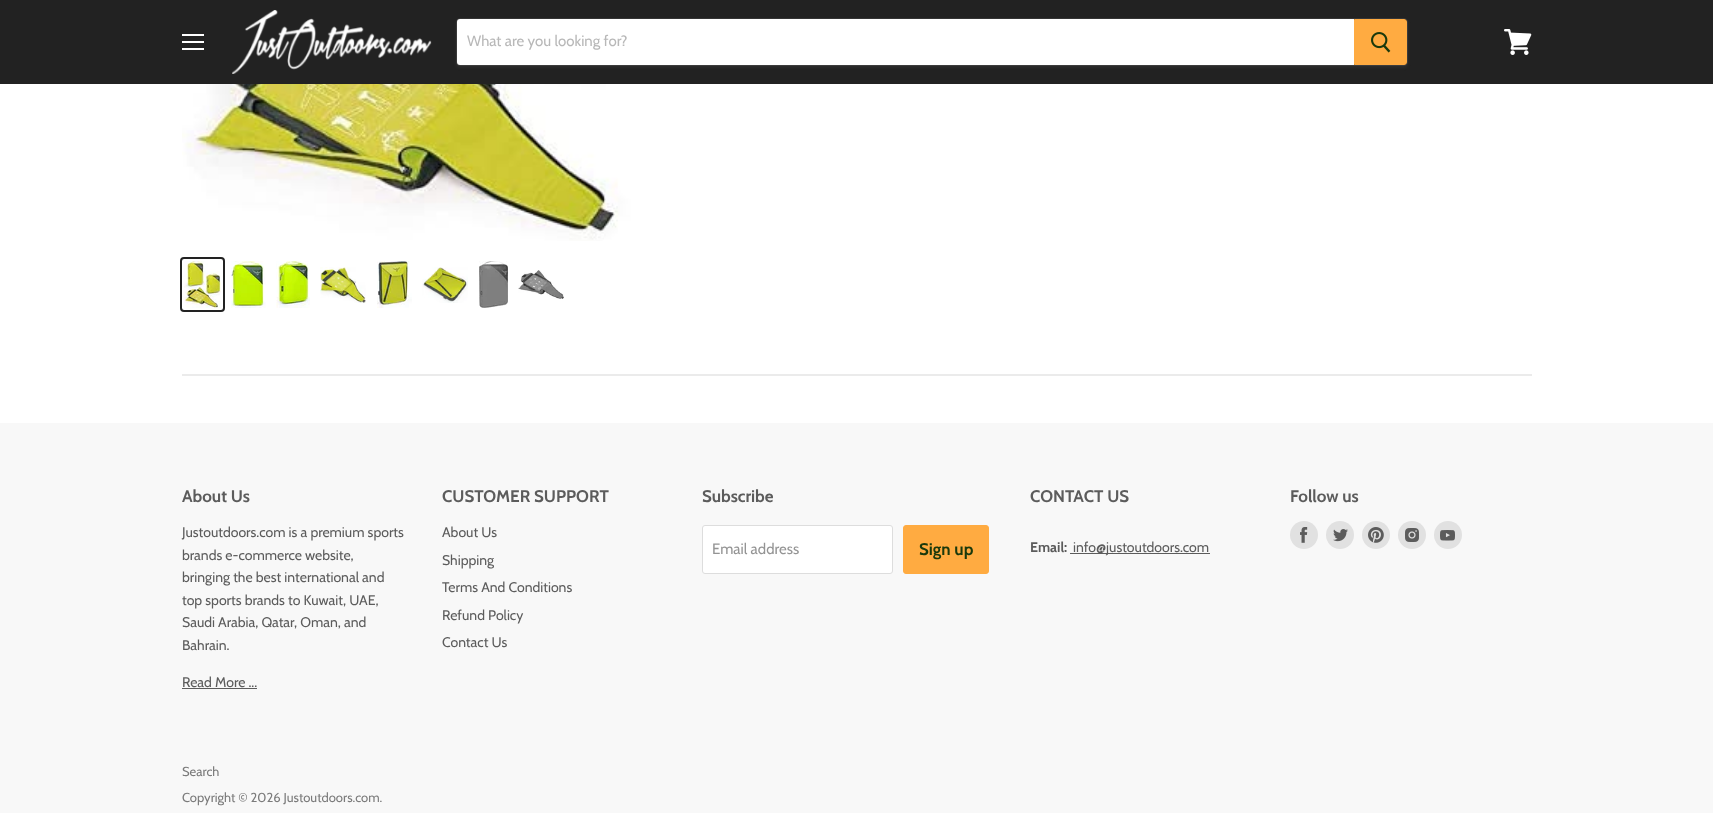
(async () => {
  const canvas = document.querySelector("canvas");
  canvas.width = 1713;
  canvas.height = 813;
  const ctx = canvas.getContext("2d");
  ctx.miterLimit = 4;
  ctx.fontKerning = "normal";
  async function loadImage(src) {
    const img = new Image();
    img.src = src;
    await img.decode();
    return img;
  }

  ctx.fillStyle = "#ffffff";
  ctx.fillRect(0, 0, 1713, 813);
  for (const [x, y, w, h, color] of [
    [0, 0, 1713, 84, "#222222"],
    [182, 34, 22, 2, "#ffffff"],
    [182, 41, 22, 2, "#ffffff"],
    [182, 48, 22, 2, "#ffffff"],
  ]) {
    ctx.fillStyle = color;
    ctx.fillRect(x, y, w, h);
  }
  ctx.drawImage(await loadImage("img/1.png"), 232, 10, 200, 64);
  ctx.fillStyle = "rgba(127, 127, 127, 0.11)";
  ctx.filter = "blur(1.5px)";
  ctx.beginPath();
  ctx.roundRect(456, 20, 952, 48, 4);
  ctx.fill();
  ctx.filter = "none";
  ctx.beginPath();
  ctx.roundRect(456.5, 18.5, 951, 47, 3.5);
  ctx.strokeStyle = "rgba(127, 127, 127, 0.2)";
  ctx.stroke();
  ctx.fillStyle = "#ffffff";
  ctx.beginPath();
  ctx.roundRect(457, 19, 897, 46, [3, 0, 0, 3]);
  ctx.fill();
  ctx.fillStyle = "#ffab41";
  ctx.beginPath();
  ctx.roundRect(1354.5, 19.5, 52, 45, [0, 2.5, 2.5, 0]);
  ctx.fill();
  ctx.strokeStyle = "#ffab41";
  ctx.stroke();
  ctx.drawImage(await loadImage("img/2.png"), 1371, 32, 20, 21);
  ctx.drawImage(await loadImage("img/3.png"), 1504, 29, 28, 26);
  ctx.drawImage(await loadImage("img/4.png"), 182, 84, 472, 157);
  ctx.beginPath();
  ctx.roundRect(181, 258, 43, 53, 3);
  ctx.strokeStyle = "#222222";
  ctx.lineWidth = 2;
  ctx.stroke();
  ctx.drawImage(await loadImage("img/5.png"), 184, 261, 37, 47);
  ctx.drawImage(await loadImage("img/6.png"), 231, 261, 35, 47);
  ctx.drawImage(await loadImage("img/7.png"), 276, 261, 34, 47);
  ctx.drawImage(await loadImage("img/8.png"), 320, 267, 46, 36);
  ctx.drawImage(await loadImage("img/9.png"), 377, 261, 35, 47);
  ctx.drawImage(await loadImage("img/10.png"), 422, 267, 46, 36);
  ctx.drawImage(await loadImage("img/11.png"), 479, 261, 29, 47);
  ctx.drawImage(await loadImage("img/12.png"), 518, 270, 46, 29);
  for (const [x, y, w, h, color] of [
    [182, 374, 1350, 2, "#ebebeb"],
    [0, 423, 1713, 390, "#f8f8f8"],
    [182, 688, 75, 1, "#5c5c5c"],
  ]) {
    ctx.fillStyle = color;
    ctx.fillRect(x, y, w, h);
  }
  ctx.fillStyle = "#ffffff";
  ctx.beginPath();
  ctx.roundRect(702.5, 525.5, 190, 48, 2.5);
  ctx.fill();
  ctx.strokeStyle = "#dddddd";
  ctx.lineWidth = 1;
  ctx.stroke();
  ctx.fillStyle = "#ffab41";
  ctx.beginPath();
  ctx.roundRect(903.5, 525.5, 85, 48, 2.5);
  ctx.fill();
  ctx.strokeStyle = "#ffab41";
  ctx.stroke();
  ctx.fillStyle = "#5c5c5c";
  ctx.fillRect(1070, 553, 140, 1);
  ctx.fillStyle = "#e1e1e1";
  ctx.beginPath();
  ctx.arc(1304, 535, 14, 0, Math.PI * 2);
  ctx.fill();
  ctx.drawImage(await loadImage("img/13.png"), 1300, 527, 8, 16);
  ctx.beginPath();
  ctx.arc(1340, 535, 14, 0, Math.PI * 2);
  ctx.fill();
  ctx.drawImage(await loadImage("img/14.png"), 1333, 529, 15, 13);
  ctx.beginPath();
  ctx.arc(1376, 535, 14, 0, Math.PI * 2);
  ctx.fill();
  ctx.drawImage(await loadImage("img/15.png"), 1368, 527, 16, 16);
  ctx.beginPath();
  ctx.arc(1412, 535, 14, 0, Math.PI * 2);
  ctx.fill();
  ctx.drawImage(await loadImage("img/16.png"), 1405, 528, 14, 14);
  ctx.beginPath();
  ctx.arc(1448, 535, 14, 0, Math.PI * 2);
  ctx.fill();
  ctx.drawImage(await loadImage("img/17.png"), 1440, 530, 15, 11);
  ctx.font = "15px Cabin";
  ctx.fillStyle = "#b8b8b8";
  ctx.fillText("What are you looking for?", 467, 46);
  ctx.font = "bold 16.9px Cabin";
  ctx.fillStyle = "#5c5c5c";
  ctx.fillText("About Us", 182, 502);
  ctx.font = "14px Cabin";
  for (const [text, x, y] of [
    ["Justoutdoors.com is a premium sports", 182, 537],
    ["brands e-commerce website,", 182, 560],
    ["bringing the best international and", 182, 582],
    ["top sports brands to Kuwait, UAE,", 182, 605],
    ["Saudi Arabia, Qatar, Oman, and", 182, 627],
    ["Bahrain.", 182, 650],
    ["Read More ...", 182, 687],
  ]) {
    ctx.fillText(text, x, y);
  }
  ctx.font = "bold 16.9px Cabin";
  ctx.fillText("CUSTOMER SUPPORT", 442, 502);
  ctx.font = "14px Cabin";
  for (const [text, x, y] of [
    ["About Us", 442, 537],
    ["Shipping", 442, 565],
    ["Terms And Conditions", 442, 592],
    ["Refund Policy", 442, 620],
    ["Contact Us", 442, 647],
  ]) {
    ctx.fillText(text, x, y);
  }
  ctx.font = "bold 16.9px Cabin";
  ctx.fillText("Subscribe", 702, 502);
  ctx.font = "15px Cabin";
  ctx.fillStyle = "#949494";
  ctx.fillText("Email address", 712, 554);
  ctx.font = "bold 16.9px Cabin";
  ctx.fillStyle = "#1a390c";
  ctx.fillText("Sign up", 919, 555);
  ctx.fillStyle = "#5c5c5c";
  ctx.fillText("CONTACT US", 1030, 502);
  ctx.font = "bold 14px Cabin";
  ctx.fillText("Email:", 1030, 552);
  ctx.font = "14px Cabin";
  ctx.fillText("info@justoutdoors.com", 1073, 552);
  ctx.font = "bold 16.9px Cabin";
  ctx.fillText("Follow us", 1290, 502);
  ctx.font = "13px Cabin";
  ctx.fillStyle = "#7b7b7b";
  ctx.fillText("Search", 182, 776);
  ctx.fillText("Copyright © 2026 Justoutdoors.com.", 182, 802);
})();
